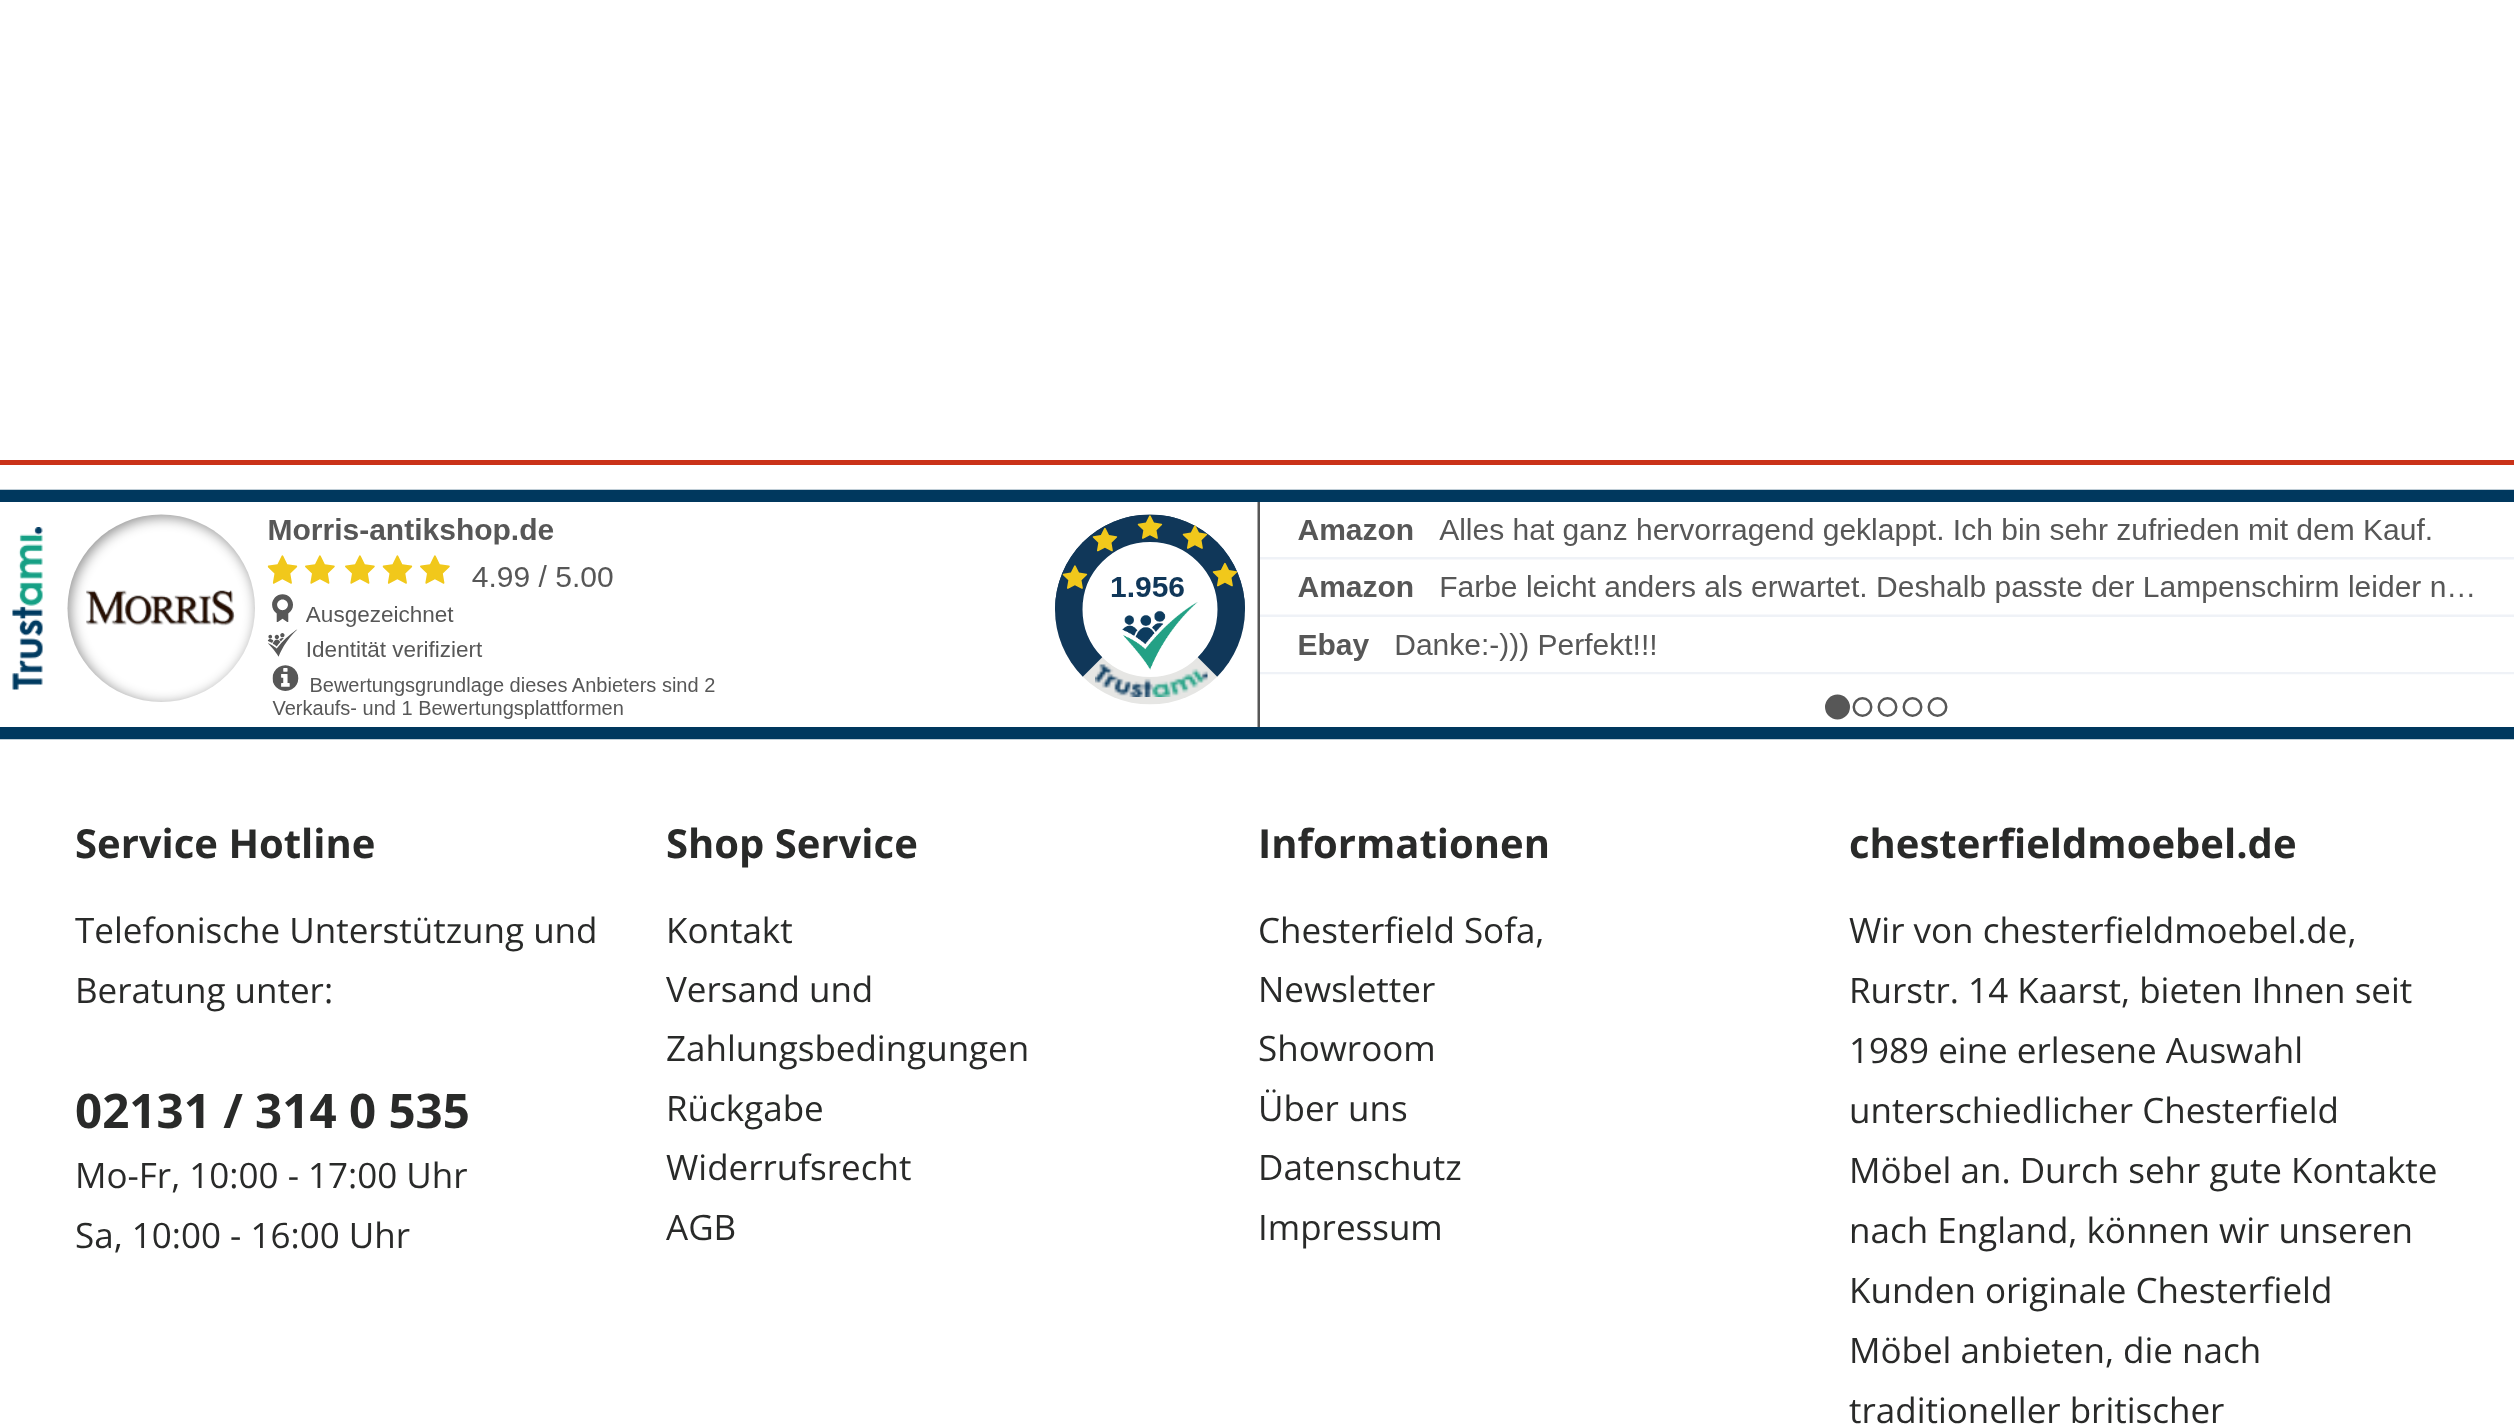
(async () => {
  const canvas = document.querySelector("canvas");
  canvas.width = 2514;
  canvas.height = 1425;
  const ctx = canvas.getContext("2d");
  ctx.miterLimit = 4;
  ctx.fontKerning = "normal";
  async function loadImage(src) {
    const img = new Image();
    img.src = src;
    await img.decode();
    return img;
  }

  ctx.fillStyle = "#ffffff";
  ctx.fillRect(0, 0, 2514, 1425);
  ctx.fillStyle = "#ca3219";
  ctx.fillRect(0, 460, 2514, 5);
  ctx.drawImage(await loadImage("img/1.png"), 0, 489, 2514, 251);
  ctx.font = "bold 40px Open Sans";
  ctx.fillStyle = "#292a29";
  ctx.fillText("Service Hotline", 75, 858);
  ctx.font = "35px Open Sans";
  ctx.fillText("Telefonische Unterstützung und", 75, 943);
  ctx.fillText("Beratung unter:", 75, 1003);
  ctx.font = "bold 47.5px Open Sans";
  ctx.fillText("02131 / 314 0 535", 75, 1128);
  ctx.font = "35px Open Sans";
  ctx.fillText("Mo-Fr, 10:00 - 17:00 Uhr", 75, 1188);
  ctx.fillText("Sa, 10:00 - 16:00 Uhr", 75, 1248);
  ctx.font = "bold 40px Open Sans";
  ctx.fillText("Shop Service", 666, 858);
  ctx.font = "35px Open Sans";
  for (const [text, x, y] of [
    ["Kontakt", 666, 943],
    ["Versand und", 666, 1002],
    ["Zahlungsbedingungen", 666, 1061],
    ["Rückgabe", 666, 1121],
    ["Widerrufsrecht", 666, 1180],
    ["AGB", 666, 1240],
  ]) {
    ctx.fillText(text, x, y);
  }
  ctx.font = "bold 40px Open Sans";
  ctx.fillText("Informationen", 1258, 858);
  ctx.font = "35px Open Sans";
  for (const [text, x, y] of [
    ["Chesterfield Sofa,", 1258, 943],
    ["Newsletter", 1258, 1002],
    ["Showroom", 1258, 1061],
    ["Über uns", 1258, 1121],
    ["Datenschutz", 1258, 1180],
    ["Impressum", 1258, 1240],
  ]) {
    ctx.fillText(text, x, y);
  }
  ctx.font = "bold 40px Open Sans";
  ctx.fillText("chesterfieldmoebel.de", 1849, 858);
  ctx.font = "35px Open Sans";
  for (const [text, x, y] of [
    ["Wir von chesterfieldmoebel.de,", 1849, 943],
    ["Rurstr. 14 Kaarst, bieten Ihnen seit", 1849, 1003],
    ["1989 eine erlesene Auswahl", 1849, 1063],
    ["unterschiedlicher Chesterfield", 1849, 1123],
    ["Möbel an. Durch sehr gute Kontakte", 1849, 1183],
    ["nach England, können wir unseren", 1849, 1243],
    ["Kunden originale Chesterfield", 1849, 1303],
    ["Möbel anbieten, die nach", 1849, 1363],
    ["traditioneller britischer", 1849, 1423],
  ]) {
    ctx.fillText(text, x, y);
  }
})();
